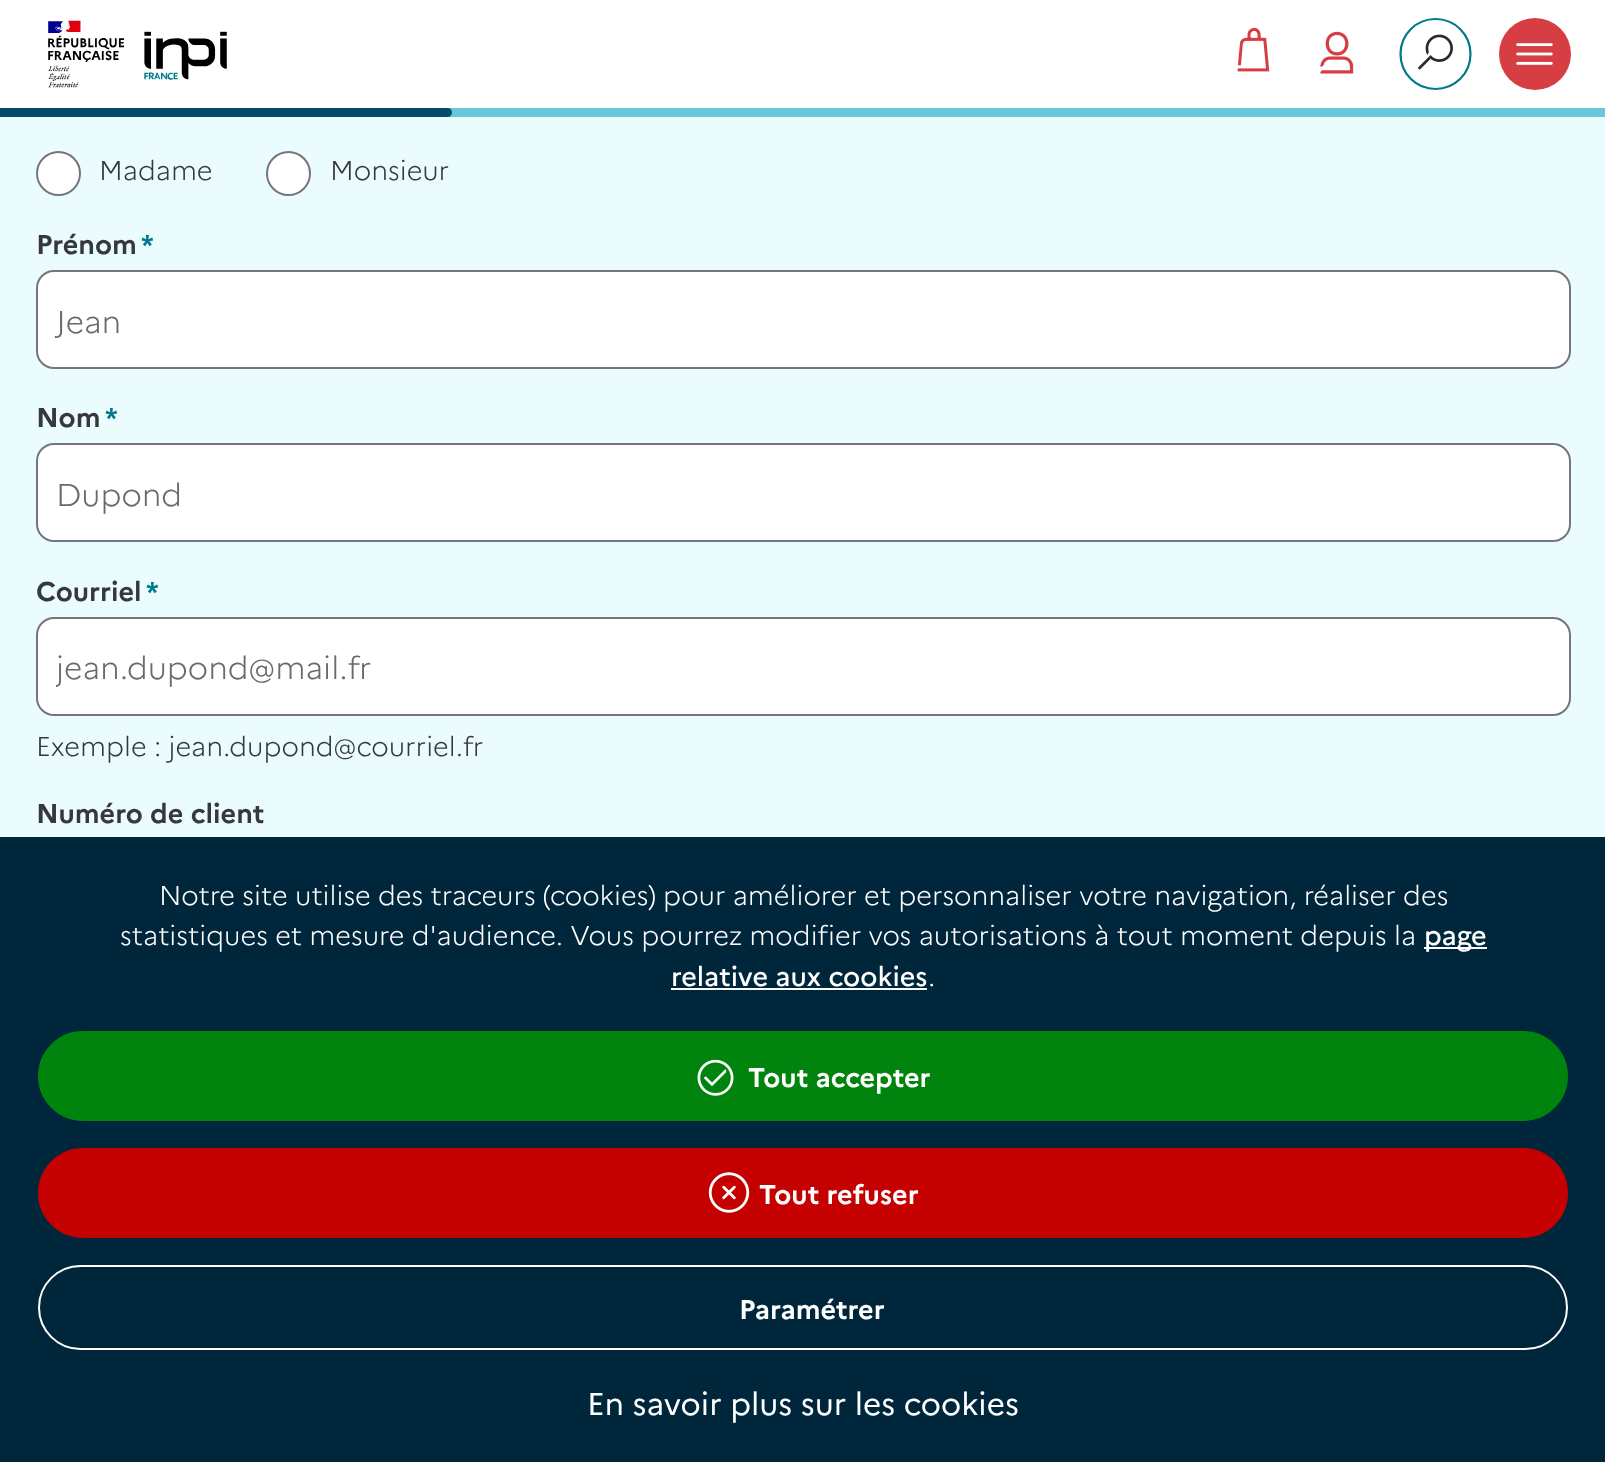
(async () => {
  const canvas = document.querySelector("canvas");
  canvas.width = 1605;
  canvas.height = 1462;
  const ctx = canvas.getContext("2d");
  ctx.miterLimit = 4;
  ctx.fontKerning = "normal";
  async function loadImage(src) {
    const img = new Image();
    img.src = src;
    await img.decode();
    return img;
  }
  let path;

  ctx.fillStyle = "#ebfcff";
  ctx.fillRect(0, 0, 1605, 1462);
  ctx.fillStyle = "#ffffff";
  ctx.fillRect(0, 0, 1605, 108);
  ctx.drawImage(await loadImage("img/1.png"), 48, 20, 179, 68);
  ctx.drawImage(await loadImage("img/2.png"), 1237, 27, 33, 45);
  ctx.drawImage(await loadImage("img/3.png"), 1320, 31, 34, 43);
  path = new Path2D("M1470.5 54C1470.5 73.5 1455 89 1435.5 89C1416 89 1400.5 73.5 1400.5 54C1400.5 34.5 1416 19 1435.5 19C1455 19 1470.5 34.5 1470.5 54Z");
  ctx.strokeStyle = "#00798c";
  ctx.lineWidth = 2.2;
  ctx.stroke(path);
  ctx.drawImage(await loadImage("img/4.png"), 1417, 34, 36, 36);
  ctx.fillStyle = "#d63e44";
  ctx.beginPath();
  ctx.arc(1535, 54, 36, 0, Math.PI * 2);
  ctx.fill();
  ctx.drawImage(await loadImage("img/5.png"), 1516, 43, 37, 22);
  ctx.fillStyle = "#66c8d8";
  ctx.fillRect(447, 108, 1158, 9);
  ctx.fillStyle = "#004a6a";
  ctx.beginPath();
  ctx.roundRect(0, 108, 452, 9, [0, 4.5, 4.5, 0]);
  ctx.fill();
  ctx.fillStyle = "#ffffff";
  ctx.beginPath();
  ctx.arc(58.5, 173.5, 21.5, 0, Math.PI * 2);
  ctx.fill();
  ctx.strokeStyle = "#757580";
  ctx.lineWidth = 2;
  ctx.stroke();
  ctx.beginPath();
  ctx.arc(288.5, 173.5, 21.5, 0, Math.PI * 2);
  ctx.fill();
  ctx.stroke();
  ctx.beginPath();
  ctx.roundRect(37, 271, 1533, 97, 17);
  ctx.fill();
  ctx.stroke();
  ctx.beginPath();
  ctx.roundRect(37, 444, 1533, 97, 17);
  ctx.fill();
  ctx.stroke();
  ctx.beginPath();
  ctx.roundRect(37, 618, 1533, 97, 17);
  ctx.fill();
  ctx.stroke();
  for (const [x, y, w, h, color] of [
    [0, 837, 1605, 625, "#00263b"],
    [1424, 947, 63, 2, "#ffffff"],
    [671, 988, 256, 2, "#ffffff"],
  ]) {
    ctx.fillStyle = color;
    ctx.fillRect(x, y, w, h);
  }
  ctx.fillStyle = "#00840d";
  ctx.beginPath();
  ctx.roundRect(39, 1032, 1528, 88, 44);
  ctx.fill();
  ctx.strokeStyle = "#00840d";
  ctx.stroke();
  ctx.drawImage(await loadImage("img/6.png"), 697, 1059, 37, 37);
  ctx.fillStyle = "#c50000";
  ctx.beginPath();
  ctx.roundRect(39, 1149, 1528, 88, 44);
  ctx.fill();
  ctx.strokeStyle = "#c50000";
  ctx.stroke();
  ctx.drawImage(await loadImage("img/7.png"), 708, 1172, 42, 41);
  ctx.beginPath();
  ctx.roundRect(39, 1266, 1528, 83, 41.5);
  ctx.strokeStyle = "#ffffff";
  ctx.stroke();
  ctx.font = "300 27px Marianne";
  ctx.fillStyle = "#37373e";
  ctx.fillText("Madame", 99, 180);
  ctx.fillText("Monsieur", 330, 180);
  ctx.font = "bold 27px Marianne";
  ctx.fillText("Prénom", 36, 254);
  ctx.fillStyle = "#00798c";
  ctx.fillText("*", 141, 254);
  ctx.font = "300 31.5px Marianne";
  ctx.fillStyle = "#696a6c";
  ctx.fillText("Jean", 56, 333);
  ctx.font = "bold 27px Marianne";
  ctx.fillStyle = "#37373e";
  ctx.fillText("Nom", 36, 427);
  ctx.fillStyle = "#00798c";
  ctx.fillText("*", 105, 427);
  ctx.font = "300 31.5px Marianne";
  ctx.fillStyle = "#696a6c";
  ctx.fillText("Dupond", 56, 506);
  ctx.font = "bold 27px Marianne";
  ctx.fillStyle = "#37373e";
  ctx.fillText("Courriel", 36, 601);
  ctx.fillStyle = "#00798c";
  ctx.fillText("*", 146, 601);
  ctx.save();
  ctx.beginPath();
  ctx.rect(56, 644, 1494, 45);
  ctx.clip();
  ctx.font = "300 31.5px Marianne";
  ctx.fillStyle = "#696a6c";
  ctx.fillText("jean.dupond@mail.fr", 56, 679);
  ctx.restore();
  ctx.font = "300 27px Marianne";
  ctx.fillStyle = "#37373e";
  ctx.fillText("Exemple : jean.dupond@courriel.fr", 36, 756);
  ctx.font = "bold 27px Marianne";
  ctx.fillText("Numéro de client", 36, 823);
  ctx.font = "300 27px Marianne";
  ctx.fillStyle = "#ffffff";
  ctx.fillText("Notre site utilise des traceurs (cookies) pour améliorer et personnaliser votre navigation, réaliser des", 159, 905);
  ctx.fillText("statistiques et mesure d'audience. Vous pourrez modifier vos autorisations à tout moment depuis la", 120, 945);
  ctx.font = "500 27px Marianne";
  ctx.fillText("page", 1424, 945);
  ctx.fillText("relative aux cookies", 671, 986);
  ctx.font = "300 27px Marianne";
  ctx.fillText(".", 928, 986);
  ctx.font = "bold 27px Marianne";
  for (const [text, x, y] of [
    ["Tout accepter", 748, 1087],
    ["Tout refuser", 759, 1204],
    ["Paramétrer", 739, 1319],
  ]) {
    ctx.fillText(text, x, y);
  }
  ctx.font = "31.5px Marianne";
  ctx.fillText("En savoir plus sur les cookies", 587, 1415);
})();
